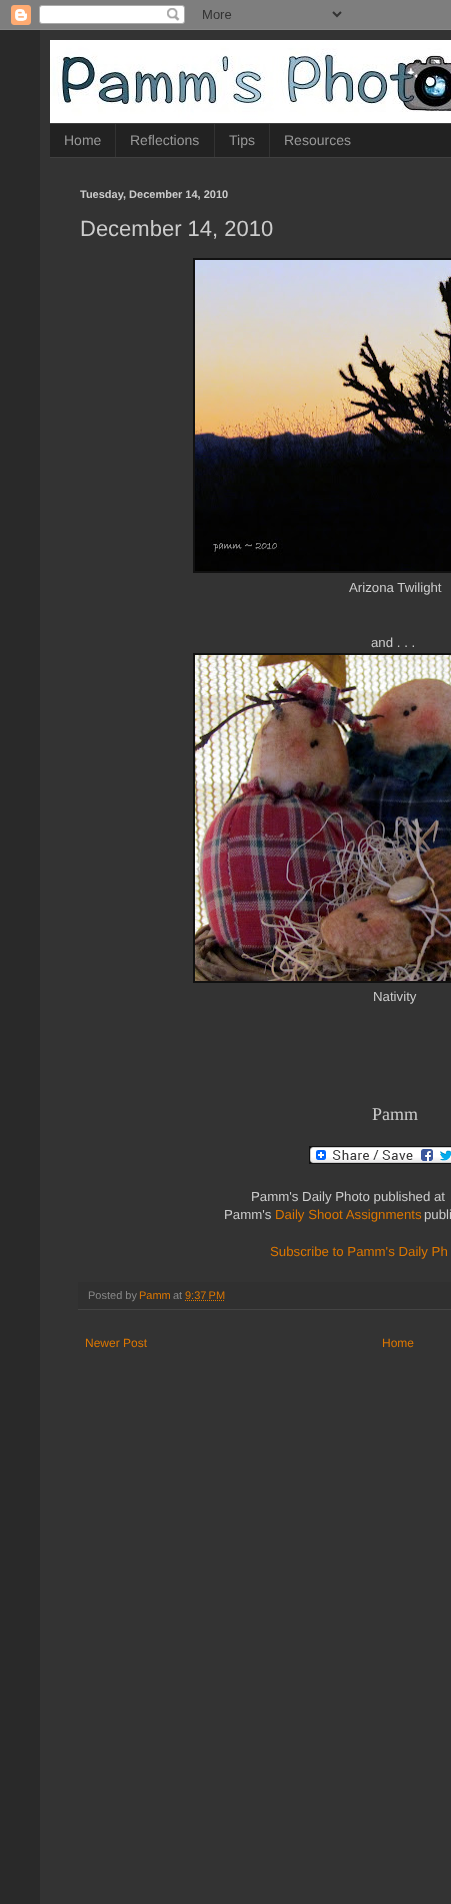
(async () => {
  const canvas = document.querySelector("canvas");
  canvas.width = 451;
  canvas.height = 1904;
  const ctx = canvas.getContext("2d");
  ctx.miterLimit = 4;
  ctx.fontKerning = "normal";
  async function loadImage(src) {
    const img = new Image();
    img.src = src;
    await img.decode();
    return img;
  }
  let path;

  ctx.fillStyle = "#292929";
  ctx.fillRect(0, 0, 451, 1904);
  ctx.drawImage(await loadImage("img/1.png"), 0, 0, 451, 30);
  ctx.fillStyle = "#333333";
  ctx.fillRect(40, 30, 411, 1874);
  ctx.drawImage(await loadImage("img/2.png"), 50, 40, 401, 83);
  for (const [x, y, w, h, color] of [
    [50, 124, 401, 33, "#222222"],
    [50, 123, 401, 1, "#404040"],
    [50, 157, 401, 1, "#404040"],
    [115, 124, 1, 33, "#333333"],
    [214, 124, 1, 33, "#333333"],
    [269, 124, 1, 33, "#333333"],
    [193, 258, 258, 315, "#111111"],
  ]) {
    ctx.fillStyle = color;
    ctx.fillRect(x, y, w, h);
  }
  ctx.drawImage(await loadImage("img/3.png"), 195, 260, 256, 311);
  ctx.fillRect(193, 653, 258, 330);
  ctx.drawImage(await loadImage("img/4.png"), 195, 655, 256, 326);
  ctx.fillRect(309, 1146, 142, 18);
  ctx.drawImage(await loadImage("img/5.png"), 310, 1147, 141, 16);
  ctx.fillStyle = "#303030";
  ctx.fillRect(78, 1282, 373, 27);
  ctx.fillStyle = "#444444";
  ctx.fillRect(78, 1309, 373, 1);
  path = new Path2D("M185 1300.5H224.5");
  ctx.strokeStyle = "#dd7700";
  ctx.setLineDash([1, 1]);
  ctx.stroke(path);
  ctx.font = "14px Liberation Sans";
  ctx.fillStyle = "#999999";
  for (const [text, x, y] of [
    ["Home", 64, 145],
    ["Reflections", 130, 145],
    ["Tips", 229, 145],
    ["Resources", 284, 145],
  ]) {
    ctx.fillText(text, x, y);
  }
  ctx.font = "bold 11px Liberation Sans";
  ctx.fillStyle = "#cccccc";
  ctx.fillText("Tuesday, December 14, 2010", 80, 198);
  ctx.font = "22px Liberation Sans";
  ctx.fillText("December 14, 2010", 80, 236);
  ctx.font = "13.25px Liberation Sans";
  for (const [text, x, y] of [
    ["Arizona Twilight", 349, 592],
    ["and . . .", 371, 647],
    ["Nativity", 373, 1001],
  ]) {
    ctx.fillText(text, x, y);
  }
  ctx.font = "18px Liberation Serif";
  ctx.fillText("Pamm", 372, 1120);
  ctx.font = "13.25px Liberation Sans";
  ctx.fillText("Pamm's Daily Photo published at", 251, 1201);
  ctx.fillText("Pamm's", 224, 1219);
  ctx.fillStyle = "#dd7700";
  ctx.fillText("Daily Shoot Assignments", 275, 1219);
  ctx.fillStyle = "#cccccc";
  ctx.fillText("publi", 424, 1219);
  ctx.fillStyle = "#dd7700";
  ctx.fillText("Subscribe to Pamm's Daily Ph", 270, 1256);
  ctx.font = "11px Liberation Sans";
  ctx.fillStyle = "#888888";
  ctx.fillText("Posted by", 88, 1299);
  ctx.fillStyle = "#dd7700";
  ctx.fillText("Pamm", 139, 1299);
  ctx.fillStyle = "#888888";
  ctx.fillText("at", 173, 1299);
  ctx.fillStyle = "#dd7700";
  ctx.fillText("9:37 PM", 185, 1299);
  ctx.font = "12px Liberation Sans";
  ctx.fillText("Newer Post", 85, 1347);
  ctx.fillText("Home", 382, 1347);
})();
